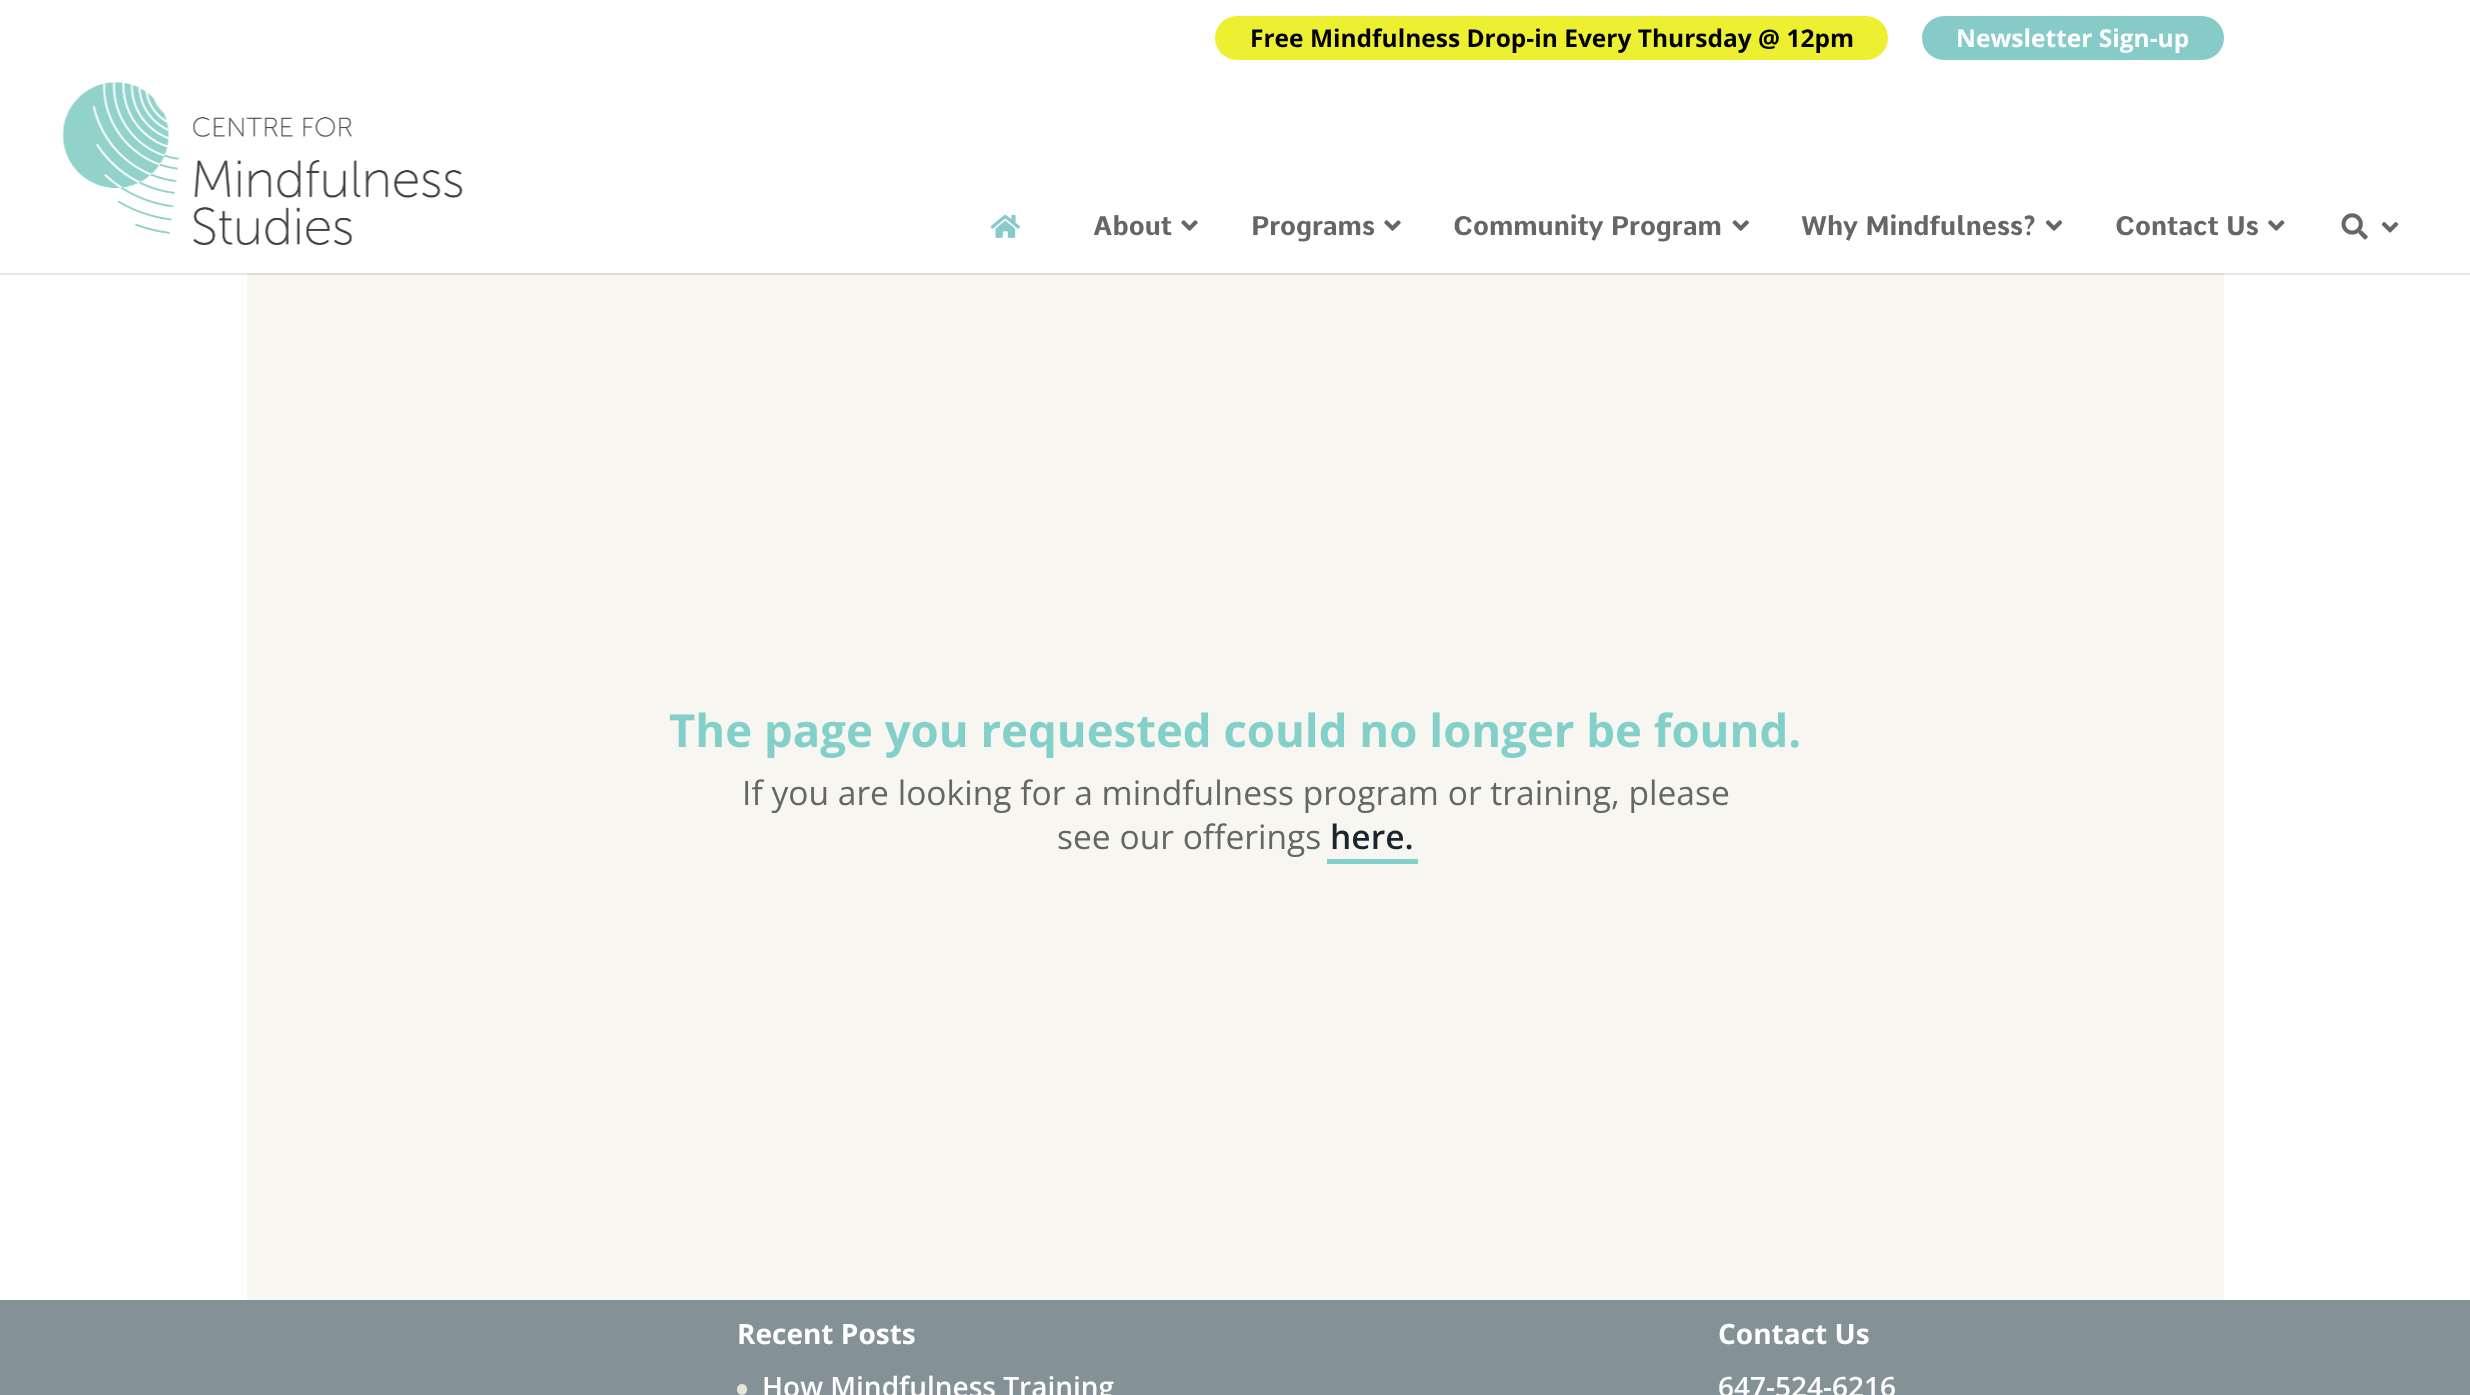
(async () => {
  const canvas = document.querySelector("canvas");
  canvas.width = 2470;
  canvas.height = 1395;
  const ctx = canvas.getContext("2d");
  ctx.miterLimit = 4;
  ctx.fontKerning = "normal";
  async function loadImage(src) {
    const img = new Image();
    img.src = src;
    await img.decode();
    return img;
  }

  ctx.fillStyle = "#ffffff";
  ctx.fillRect(0, 0, 2470, 1395);
  ctx.fillStyle = "#e6e6e6";
  ctx.fillRect(0, 273, 2470, 2);
  ctx.fillStyle = "#edf030";
  ctx.beginPath();
  ctx.roundRect(1215, 16, 673, 44, 22);
  ctx.fill();
  ctx.fillStyle = "#87cbc9";
  ctx.beginPath();
  ctx.roundRect(1922, 16, 302, 44, 22);
  ctx.fill();
  ctx.drawImage(await loadImage("img/1.png"), 62, 82, 401, 163);
  ctx.drawImage(await loadImage("img/2.png"), 990, 214, 30, 24);
  ctx.drawImage(await loadImage("img/3.png"), 1181, 220, 17, 11);
  ctx.drawImage(await loadImage("img/3.png"), 1384, 220, 17, 11);
  ctx.drawImage(await loadImage("img/4.png"), 1732, 220, 17, 11);
  ctx.drawImage(await loadImage("img/5.png"), 2045, 220, 18, 11);
  ctx.drawImage(await loadImage("img/6.png"), 2268, 220, 17, 11);
  ctx.drawImage(await loadImage("img/7.png"), 2341, 213, 27, 27);
  ctx.drawImage(await loadImage("img/8.png"), 2381, 222, 18, 11);
  for (const [x, y, w, h, color] of [
    [247, 275, 1977, 1025, "#f7f6f0"],
    [247, 273, 1977, 2, "#deddd8"],
    [1327, 859, 91, 5, "#83d0ca"],
    [0, 1300, 2470, 95, "#849196"],
  ]) {
    ctx.fillStyle = color;
    ctx.fillRect(x, y, w, h);
  }
  ctx.fillStyle = "#e8e6d4";
  ctx.beginPath();
  ctx.roundRect(737, 1384, 10, 11, 5);
  ctx.fill();
  ctx.font = "bold 24.5px Open Sans";
  ctx.fillStyle = "#000000";
  ctx.fillText("Free Mindfulness Drop-in Every Thursday @ 12pm", 1250, 47);
  ctx.fillStyle = "#ffffff";
  ctx.fillText("Newsletter Sign-up", 1956, 47);
  ctx.font = "bold 26.25px Comme";
  ctx.fillStyle = "#666666";
  for (const [text, x, y] of [
    ["About", 1093, 235],
    ["Programs", 1251, 235],
    ["Community Program", 1453, 235],
    ["Why Mindfulness?", 1801, 235],
    ["Contact Us", 2115, 235],
  ]) {
    ctx.fillText(text, x, y);
  }
  ctx.font = "bold 45.5px Open Sans";
  ctx.fillStyle = "#83d0ca";
  ctx.fillText("The page you requested could no longer be found.", 669, 747);
  ctx.font = "33.6px Open Sans";
  ctx.fillStyle = "#666666";
  ctx.fillText("If you are looking for a mindfulness program or training, please", 742, 805);
  ctx.fillText("see our offerings", 1057, 849);
  ctx.font = "600 33.6px Open Sans";
  ctx.fillStyle = "#18272f";
  ctx.fillText("here.", 1330, 849);
  ctx.font = "bold 28px Open Sans";
  ctx.fillStyle = "#ffffff";
  ctx.fillText("Recent Posts", 737, 1344);
  ctx.font = "600 28px Open Sans";
  ctx.fillText("How Mindfulness Training", 762, 1397);
  ctx.font = "bold 28px Open Sans";
  ctx.fillText("Contact Us", 1718, 1344);
  ctx.font = "600 28px Open Sans";
  ctx.fillText("647-524-6216", 1718, 1397);
})();
